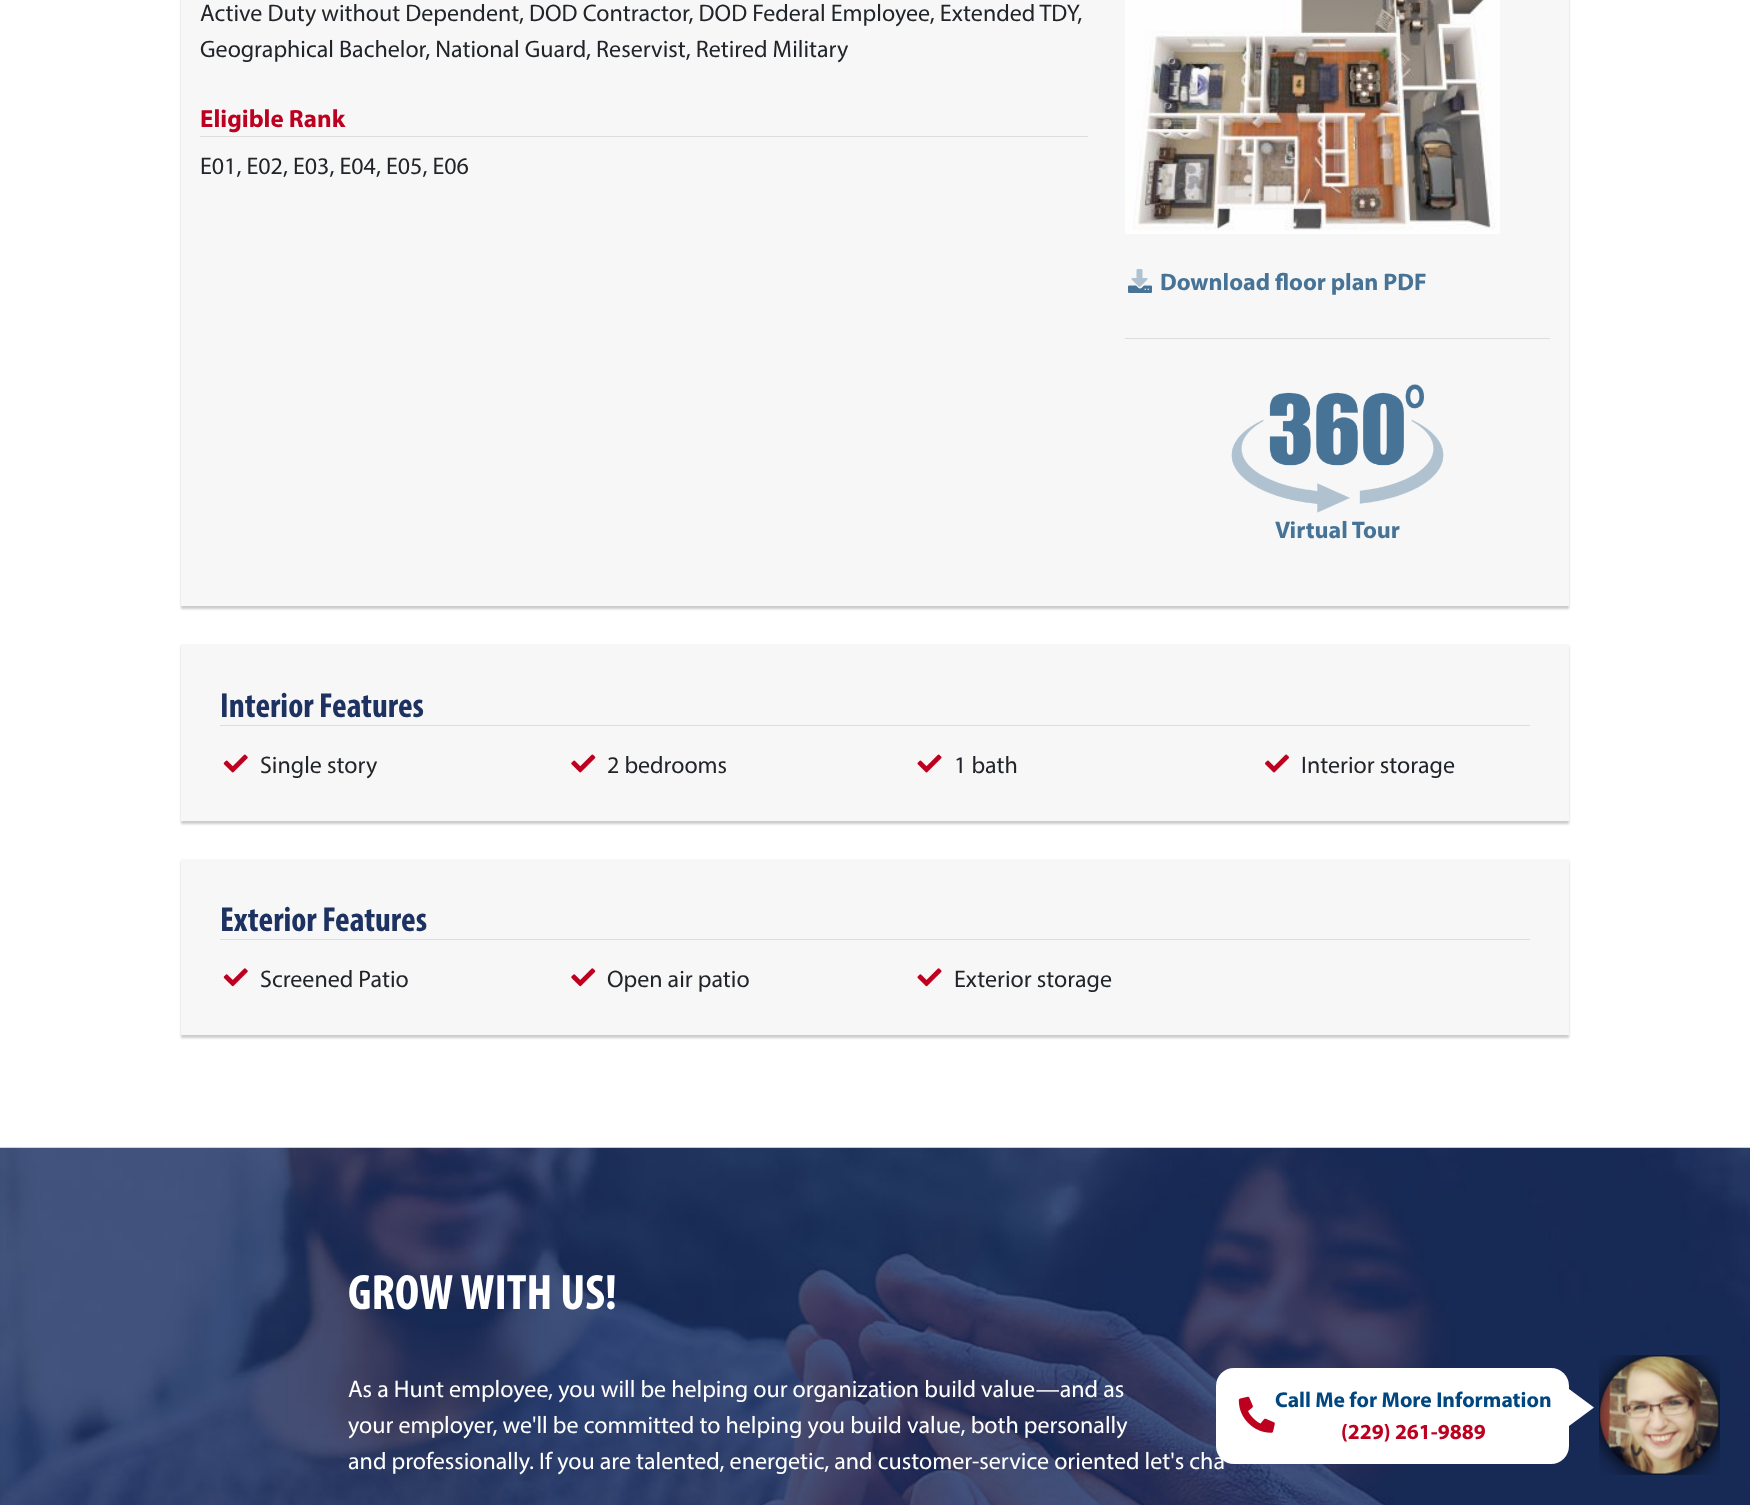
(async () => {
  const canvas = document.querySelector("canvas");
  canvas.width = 1750;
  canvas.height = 1505;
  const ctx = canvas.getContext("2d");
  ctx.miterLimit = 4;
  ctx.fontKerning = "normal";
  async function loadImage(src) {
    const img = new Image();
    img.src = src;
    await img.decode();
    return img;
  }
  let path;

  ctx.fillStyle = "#ffffff";
  ctx.fillRect(0, 0, 1750, 1505);
  ctx.fillStyle = "rgba(0, 0, 0, 0.2)";
  ctx.filter = "blur(1px)";
  ctx.beginPath();
  ctx.rect(181, -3, 1388, 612);
  ctx.fill();
  ctx.filter = "none";
  ctx.fillStyle = "#f7f7f7";
  ctx.fillRect(181, 0, 1388, 606);
  ctx.fillStyle = "#dddddd";
  ctx.fillRect(200, 136, 888, 1);
  ctx.drawImage(await loadImage("img/1.png"), 1125, 0, 375, 234);
  ctx.drawImage(await loadImage("img/3.png"), 1128, 285, 24, 8);
  ctx.drawImage(await loadImage("img/2.png"), 1131, 269, 17, 18);
  ctx.fillRect(1125, 338, 425, 1);
  ctx.drawImage(await loadImage("img/4.png"), 1231, 384, 213, 129);
  ctx.fillStyle = "rgba(0, 0, 0, 0.2)";
  ctx.filter = "blur(1px)";
  ctx.beginPath();
  ctx.rect(181, 646, 1388, 178);
  ctx.fill();
  ctx.filter = "none";
  ctx.fillStyle = "#f7f7f7";
  ctx.fillRect(181, 644, 1388, 177);
  ctx.fillStyle = "#dddddd";
  ctx.fillRect(220, 725, 1310, 1);
  ctx.drawImage(await loadImage("img/5.png"), 223, 754, 25, 19);
  ctx.drawImage(await loadImage("img/6.png"), 571, 754, 25, 19);
  ctx.drawImage(await loadImage("img/7.png"), 917, 754, 25, 19);
  ctx.drawImage(await loadImage("img/8.png"), 1265, 754, 24, 19);
  ctx.fillStyle = "rgba(0, 0, 0, 0.2)";
  ctx.filter = "blur(1px)";
  ctx.beginPath();
  ctx.rect(181, 861, 1388, 177);
  ctx.fill();
  ctx.filter = "none";
  ctx.fillStyle = "#f7f7f7";
  ctx.fillRect(181, 859, 1388, 176);
  ctx.fillStyle = "#dddddd";
  ctx.fillRect(220, 939, 1310, 1);
  ctx.drawImage(await loadImage("img/9.png"), 223, 968, 25, 19);
  ctx.drawImage(await loadImage("img/10.png"), 571, 968, 25, 19);
  ctx.drawImage(await loadImage("img/11.png"), 917, 968, 25, 19);
  ctx.drawImage(await loadImage("img/14.png"), 0, 1147, 1750, 358);
  ctx.fillStyle = "#ffffff";
  ctx.beginPath();
  ctx.roundRect(1216, 1368, 353, 96, 18);
  ctx.fill();
  ctx.drawImage(await loadImage("img/12.png"), 1238, 1396, 37, 37);
  path = new Path2D("M1569 1389V1426L1594 1407.5Z");
  ctx.fill(path);
  ctx.drawImage(await loadImage("img/13.png"), 1599, 1355, 121, 120);
  ctx.font = "24px Myriad";
  ctx.fillStyle = "#212529";
  ctx.fillText("Active Duty without Dependent, DOD Contractor, DOD Federal Employee, Extended TDY,", 200, 21);
  ctx.fillText("Geographical Bachelor, National Guard, Reservist, Retired Military", 200, 57);
  ctx.font = "bold 25px Myriad";
  ctx.fillStyle = "#bd001f";
  ctx.fillText("Eligible Rank", 200, 127);
  ctx.font = "24px Myriad";
  ctx.fillStyle = "#212529";
  ctx.fillText("E01, E02, E03, E04, E05, E06", 200, 174);
  ctx.font = "bold 24px Myriad";
  ctx.fillStyle = "#467396";
  ctx.fillText("Download floor plan PDF", 1160, 290);
  ctx.fillText("Virtual Tour", 1275, 538);
  ctx.font = "bold 35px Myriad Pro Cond";
  ctx.fillStyle = "#1d3260";
  ctx.fillText("Interior Features", 220, 717);
  ctx.font = "24px Myriad";
  ctx.fillStyle = "#212529";
  for (const [text, x, y] of [
    ["Single story", 260, 773],
    ["2 bedrooms", 607, 773],
    ["1 bath", 954, 773],
    ["Interior storage", 1301, 773],
  ]) {
    ctx.fillText(text, x, y);
  }
  ctx.font = "bold 35px Myriad Pro Cond";
  ctx.fillStyle = "#1d3260";
  ctx.fillText("Exterior Features", 220, 931);
  ctx.font = "24px Myriad";
  ctx.fillStyle = "#212529";
  for (const [text, x, y] of [
    ["Screened Patio", 260, 987],
    ["Open air patio", 607, 987],
    ["Exterior storage", 954, 987],
  ]) {
    ctx.fillText(text, x, y);
  }
  ctx.font = "bold 21.6px Myriad";
  ctx.fillStyle = "#00467f";
  ctx.fillText("Call Me for More Information", 1275, 1407);
  ctx.fillStyle = "#bd001f";
  ctx.fillText("(229) 261-9889", 1341, 1439);
  ctx.font = "bold 50px Myriad Pro Cond";
  ctx.fillStyle = "#ffffff";
  ctx.fillText("GROW WITH US!", 348, 1309);
  ctx.font = "24px Myriad";
  for (const [text, x, y] of [
    ["As a Hunt employee, you will be helping our organization build value—and as", 348, 1397],
    ["your employer, we'll be committed to helping you build value, both personally", 348, 1433],
    ["and professionally. If you are talented, energetic, and customer-service oriented let's cha", 348, 1469],
  ]) {
    ctx.fillText(text, x, y);
  }
})();
